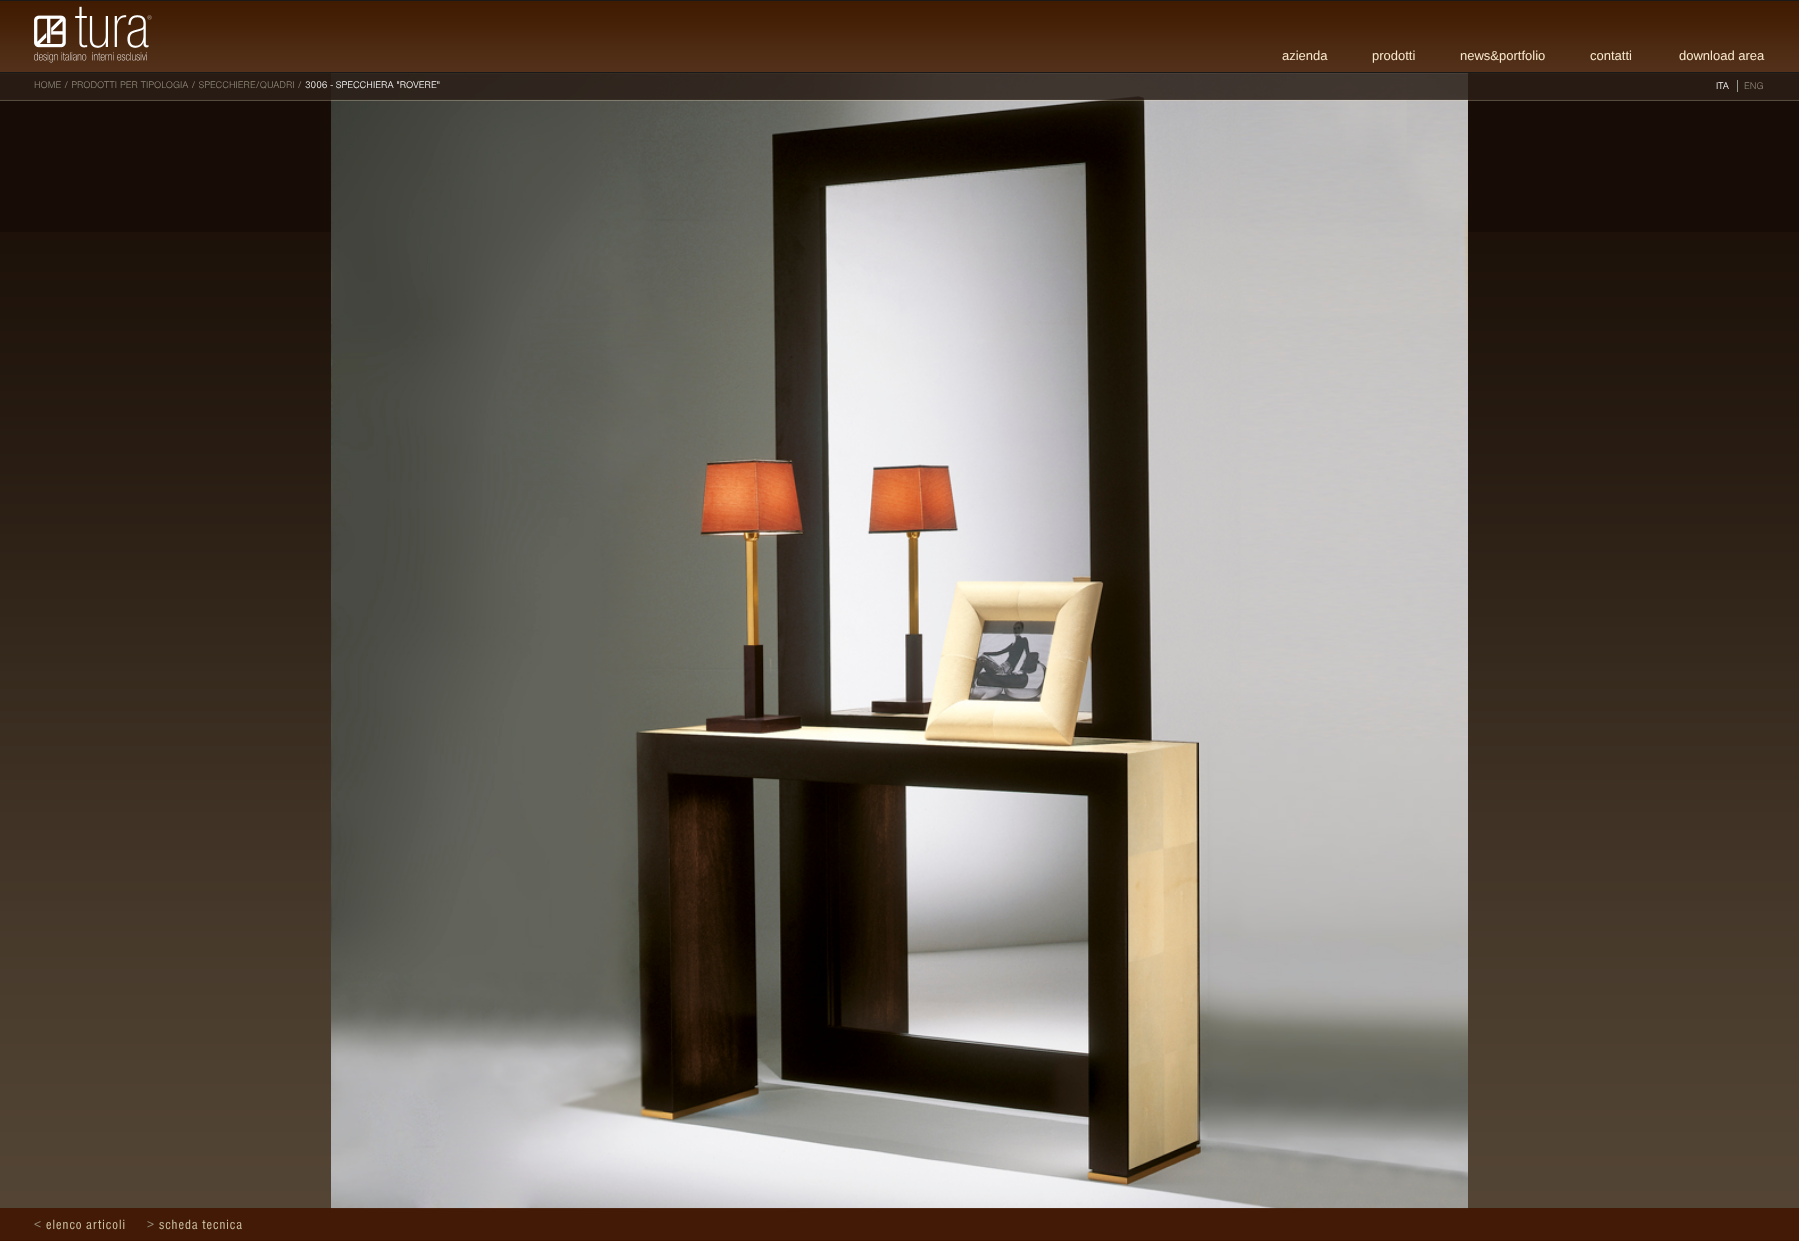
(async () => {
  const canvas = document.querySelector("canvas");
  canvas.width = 1799;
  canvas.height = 1241;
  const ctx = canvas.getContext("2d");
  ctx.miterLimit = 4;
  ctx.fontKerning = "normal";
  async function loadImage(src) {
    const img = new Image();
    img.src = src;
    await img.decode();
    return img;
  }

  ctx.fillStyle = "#180d06";
  ctx.fillRect(0, 0, 1799, 1241);
  ctx.drawImage(await loadImage("img/4.png"), 0, 232, 1799, 1008);
  ctx.drawImage(await loadImage("img/3.png"), 331, 73, 1137, 1136);
  ctx.drawImage(await loadImage("img/1.png"), 0, 0, 1799, 101);
  ctx.drawImage(await loadImage("img/2.png"), 34, 6, 118, 57);
  ctx.fillStyle = "#979996";
  ctx.fillRect(1737, 80, 1, 12);
  ctx.fillStyle = "rgba(64, 21, 0, 0.9)";
  ctx.fillRect(0, 1208, 1799, 33);
  ctx.font = "13px Liberation Sans";
  ctx.fillStyle = "#f8e9cc";
  for (const [text, x, y] of [
    ["azienda", 1282, 60],
    ["prodotti", 1372, 60],
    ["news&portfolio", 1460, 60],
    ["contatti", 1590, 60],
    ["download area", 1679, 60],
  ]) {
    ctx.fillText(text, x, y);
  }
  ctx.font = "300 10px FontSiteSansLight";
  ctx.fillStyle = "#918977";
  ctx.fillText("HOME / PRODOTTI PER TIPOLOGIA / SPECCHIERE/QUADRI /", 34, 88);
  ctx.fillStyle = "#ffffff";
  ctx.fillText("3006 - SPECCHIERA \"ROVERE\"", 305, 88);
  ctx.fillText("ITA", 1716, 89);
  ctx.fillStyle = "#918977";
  ctx.fillText("ENG", 1744, 89);
  ctx.letterSpacing = "1px";
  ctx.font = "14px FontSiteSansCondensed";
  ctx.fillText("<", 34, 1229);
  ctx.fillStyle = "#ccc0a3";
  ctx.fillText("elenco articoli", 46, 1229);
  ctx.fillStyle = "#918977";
  ctx.fillText(">", 147, 1229);
  ctx.fillStyle = "#ccc0a3";
  ctx.fillText("scheda tecnica", 159, 1229);
})();
